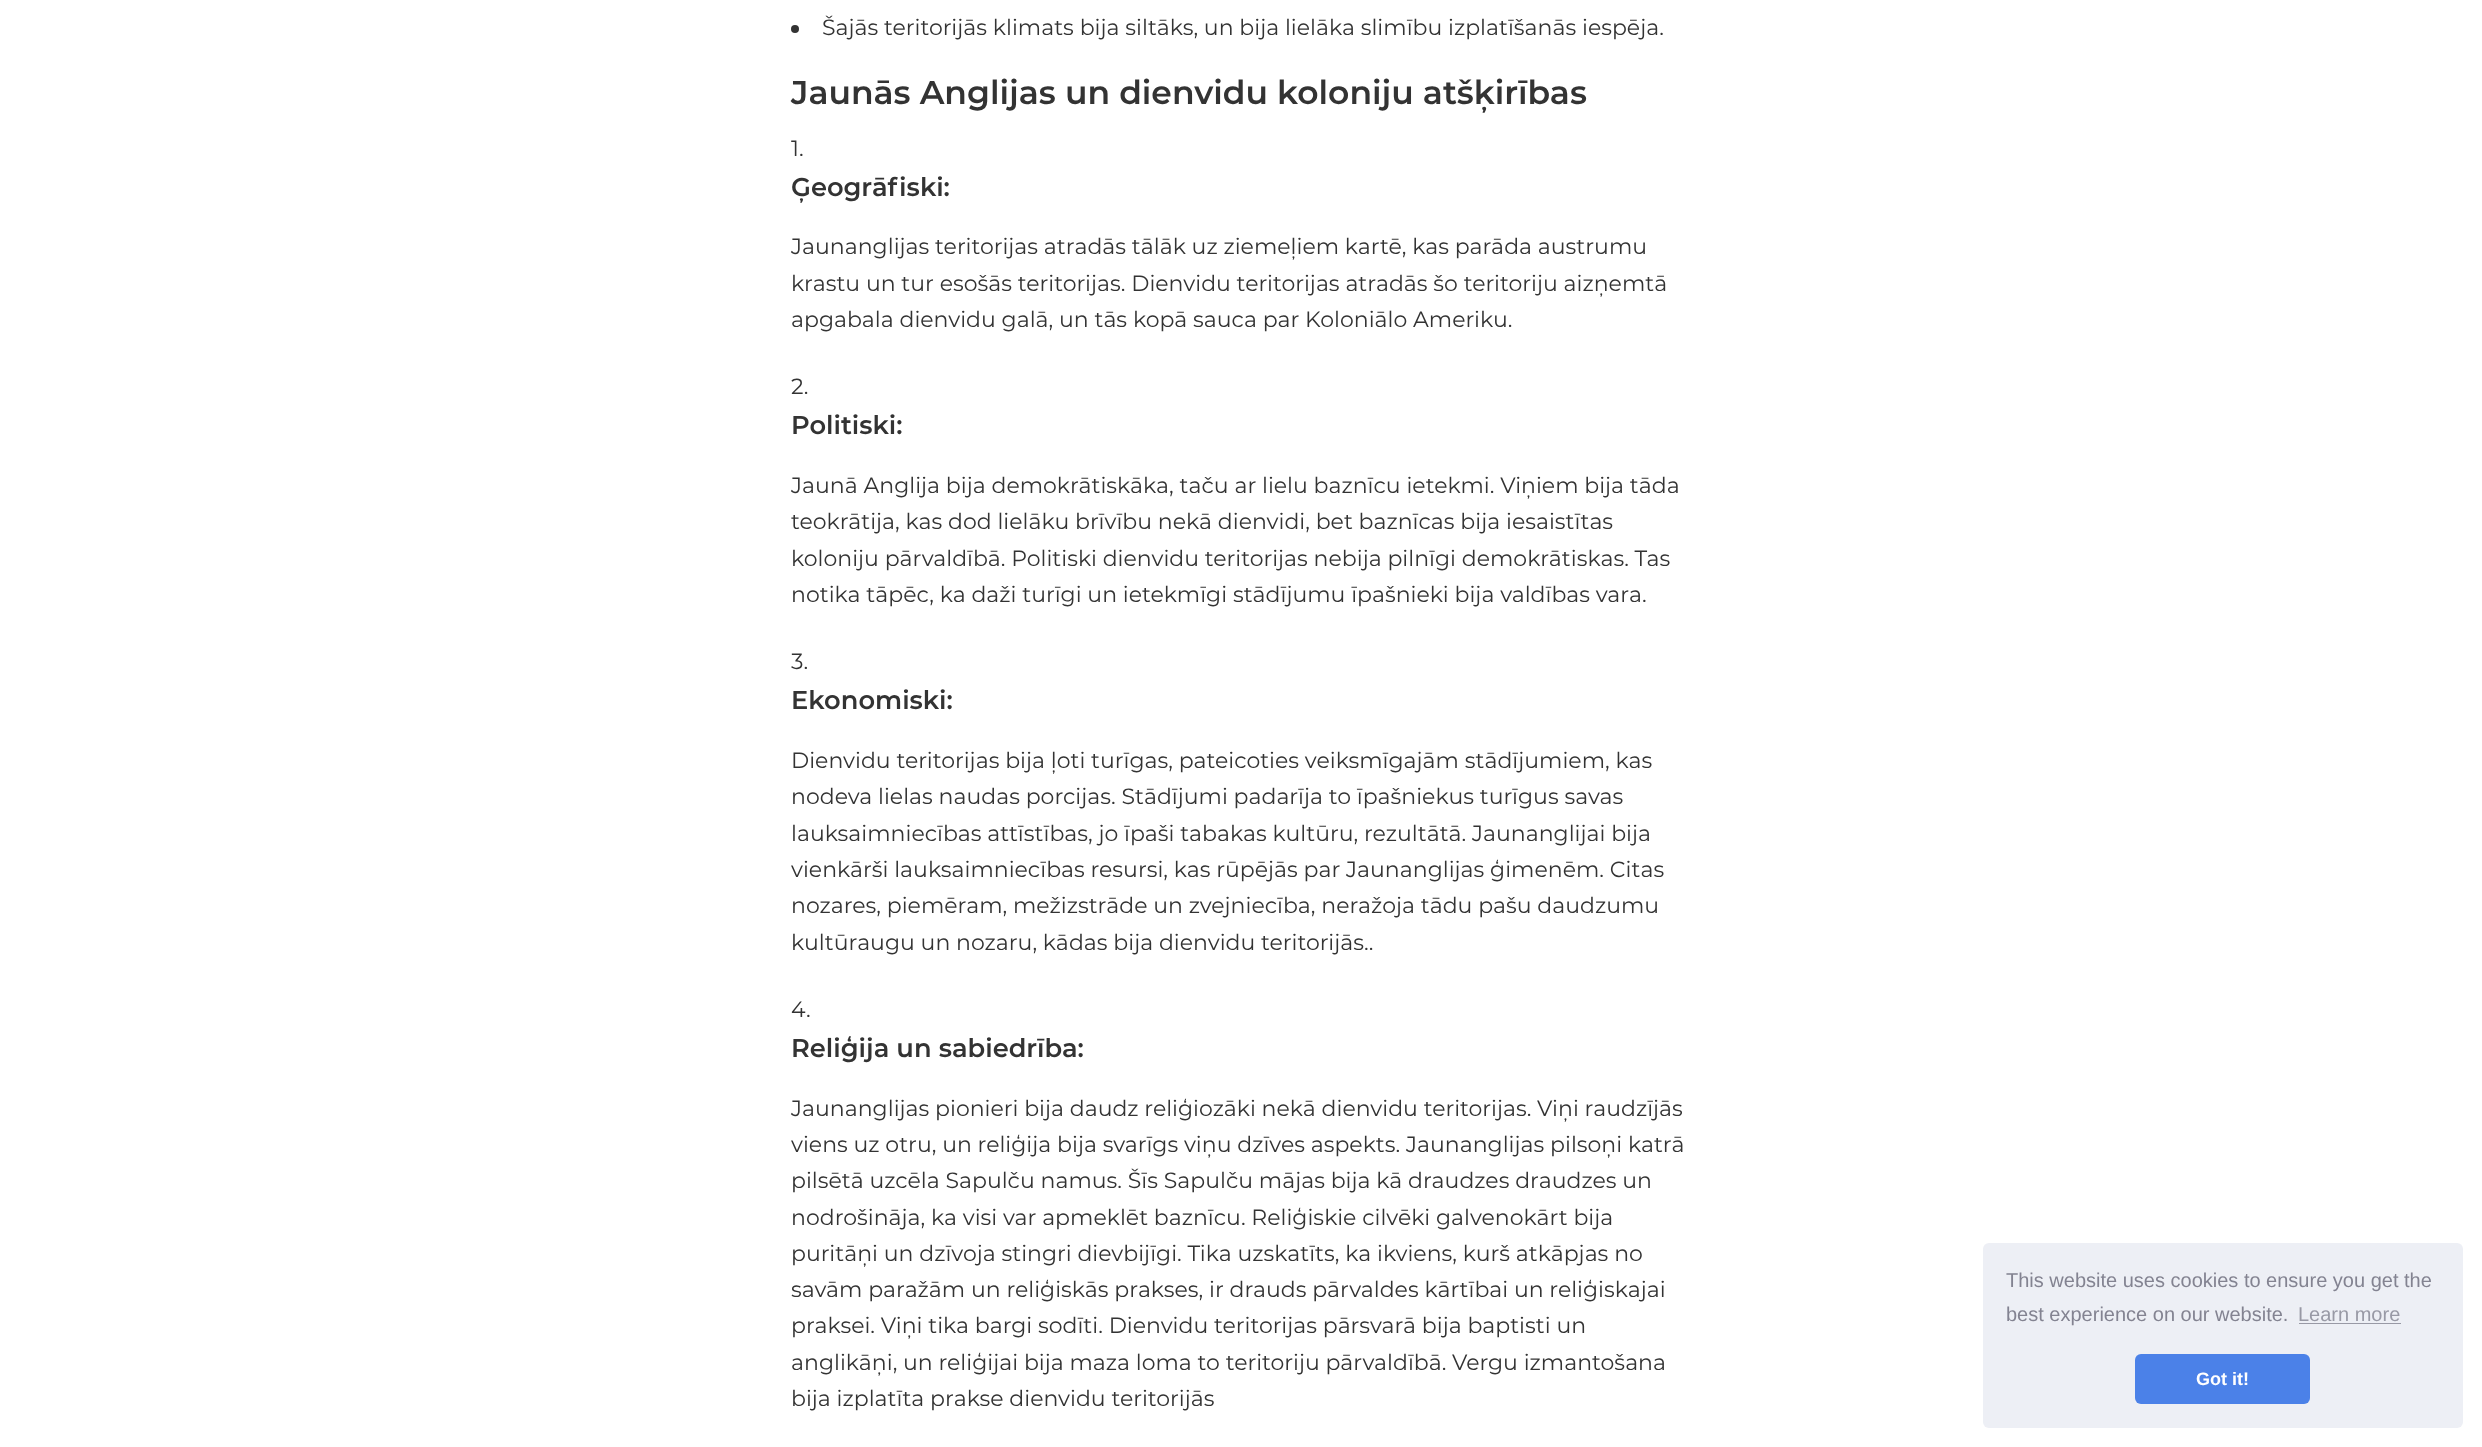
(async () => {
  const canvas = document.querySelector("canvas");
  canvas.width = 2482;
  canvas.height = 1447;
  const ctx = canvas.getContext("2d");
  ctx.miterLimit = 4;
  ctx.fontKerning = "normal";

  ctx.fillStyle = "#ffffff";
  ctx.fillRect(0, 0, 2482, 1447);
  ctx.fillStyle = "#333333";
  ctx.beginPath();
  ctx.arc(795, 29, 4, 0, Math.PI * 2);
  ctx.fill();
  ctx.fillStyle = "#edeff5";
  ctx.beginPath();
  ctx.roundRect(1983, 1243, 480, 185, 6);
  ctx.fill();
  ctx.fillStyle = "#9899a5";
  ctx.fillRect(2299, 1323, 102, 1);
  ctx.fillStyle = "#4b81e8";
  ctx.beginPath();
  ctx.roundRect(2135, 1354, 175, 50, 6);
  ctx.fill();
  ctx.font = "22px Montserrat";
  ctx.fillStyle = "#333333";
  ctx.fillText("Šajās teritorijās klimats bija siltāks, un bija lielāka slimību izplatīšanās iespēja.", 822, 35);
  ctx.font = "600 33px Montserrat";
  ctx.fillText("Jaunās Anglijas un dienvidu koloniju atšķirības", 791, 104);
  ctx.font = "22px Montserrat";
  ctx.fillText("1.", 791, 156);
  ctx.font = "600 25.75px Montserrat";
  ctx.fillText("Ģeogrāfiski:", 791, 196);
  ctx.font = "22px Montserrat";
  for (const [text, x, y] of [
    ["Jaunanglijas teritorijas atradās tālāk uz ziemeļiem kartē, kas parāda austrumu", 791, 254],
    ["krastu un tur esošās teritorijas. Dienvidu teritorijas atradās šo teritoriju aizņemtā", 791, 291],
    ["apgabala dienvidu galā, un tās kopā sauca par Koloniālo Ameriku.", 791, 327],
    ["2.", 791, 394],
  ]) {
    ctx.fillText(text, x, y);
  }
  ctx.font = "600 25.75px Montserrat";
  ctx.fillText("Politiski:", 791, 434);
  ctx.font = "22px Montserrat";
  for (const [text, x, y] of [
    ["Jaunā Anglija bija demokrātiskāka, taču ar lielu baznīcu ietekmi. Viņiem bija tāda", 791, 493],
    ["teokrātija, kas dod lielāku brīvību nekā dienvidi, bet baznīcas bija iesaistītas", 791, 529],
    ["koloniju pārvaldībā. Politiski dienvidu teritorijas nebija pilnīgi demokrātiskas. Tas", 791, 566],
    ["notika tāpēc, ka daži turīgi un ietekmīgi stādījumu īpašnieki bija valdības vara.", 791, 602],
    ["3.", 791, 669],
  ]) {
    ctx.fillText(text, x, y);
  }
  ctx.font = "600 25.75px Montserrat";
  ctx.fillText("Ekonomiski:", 791, 709);
  ctx.font = "22px Montserrat";
  for (const [text, x, y] of [
    ["Dienvidu teritorijas bija ļoti turīgas, pateicoties veiksmīgajām stādījumiem, kas", 791, 768],
    ["nodeva lielas naudas porcijas. Stādījumi padarīja to īpašniekus turīgus savas", 791, 804],
    ["lauksaimniecības attīstības, jo īpaši tabakas kultūru, rezultātā. Jaunanglijai bija", 791, 841],
    ["vienkārši lauksaimniecības resursi, kas rūpējās par Jaunanglijas ģimenēm. Citas", 791, 877],
    ["nozares, piemēram, mežizstrāde un zvejniecība, neražoja tādu pašu daudzumu", 791, 913],
    ["kultūraugu un nozaru, kādas bija dienvidu teritorijās..", 791, 950],
    ["4.", 791, 1017],
  ]) {
    ctx.fillText(text, x, y);
  }
  ctx.font = "600 25.75px Montserrat";
  ctx.fillText("Reliģija un sabiedrība:", 791, 1057);
  ctx.font = "22px Montserrat";
  for (const [text, x, y] of [
    ["Jaunanglijas pionieri bija daudz reliģiozāki nekā dienvidu teritorijas. Viņi raudzījās", 791, 1116],
    ["viens uz otru, un reliģija bija svarīgs viņu dzīves aspekts. Jaunanglijas pilsoņi katrā", 791, 1152],
    ["pilsētā uzcēla Sapulču namus. Šīs Sapulču mājas bija kā draudzes draudzes un", 791, 1188],
    ["nodrošināja, ka visi var apmeklēt baznīcu. Reliģiskie cilvēki galvenokārt bija", 791, 1225],
    ["puritāņi un dzīvoja stingri dievbijīgi. Tika uzskatīts, ka ikviens, kurš atkāpjas no", 791, 1261],
    ["savām paražām un reliģiskās prakses, ir drauds pārvaldes kārtībai un reliģiskajai", 791, 1297],
    ["praksei. Viņi tika bargi sodīti. Dienvidu teritorijas pārsvarā bija baptisti un", 791, 1333],
    ["anglikāņi, un reliģijai bija maza loma to teritoriju pārvaldībā. Vergu izmantošana", 791, 1370],
    ["bija izplatīta prakse dienvidu teritorijās", 791, 1406],
  ]) {
    ctx.fillText(text, x, y);
  }
  ctx.font = "20px Liberation Sans";
  ctx.fillStyle = "#838391";
  ctx.fillText("This website uses cookies to ensure you get the", 2006, 1287);
  ctx.fillText("best experience on our website.", 2006, 1321);
  ctx.fillStyle = "#9899a5";
  ctx.fillText("Learn more", 2298, 1321);
  ctx.font = "bold 18px Liberation Sans";
  ctx.fillStyle = "#ffffff";
  ctx.fillText("Got it!", 2196, 1385);
})();
